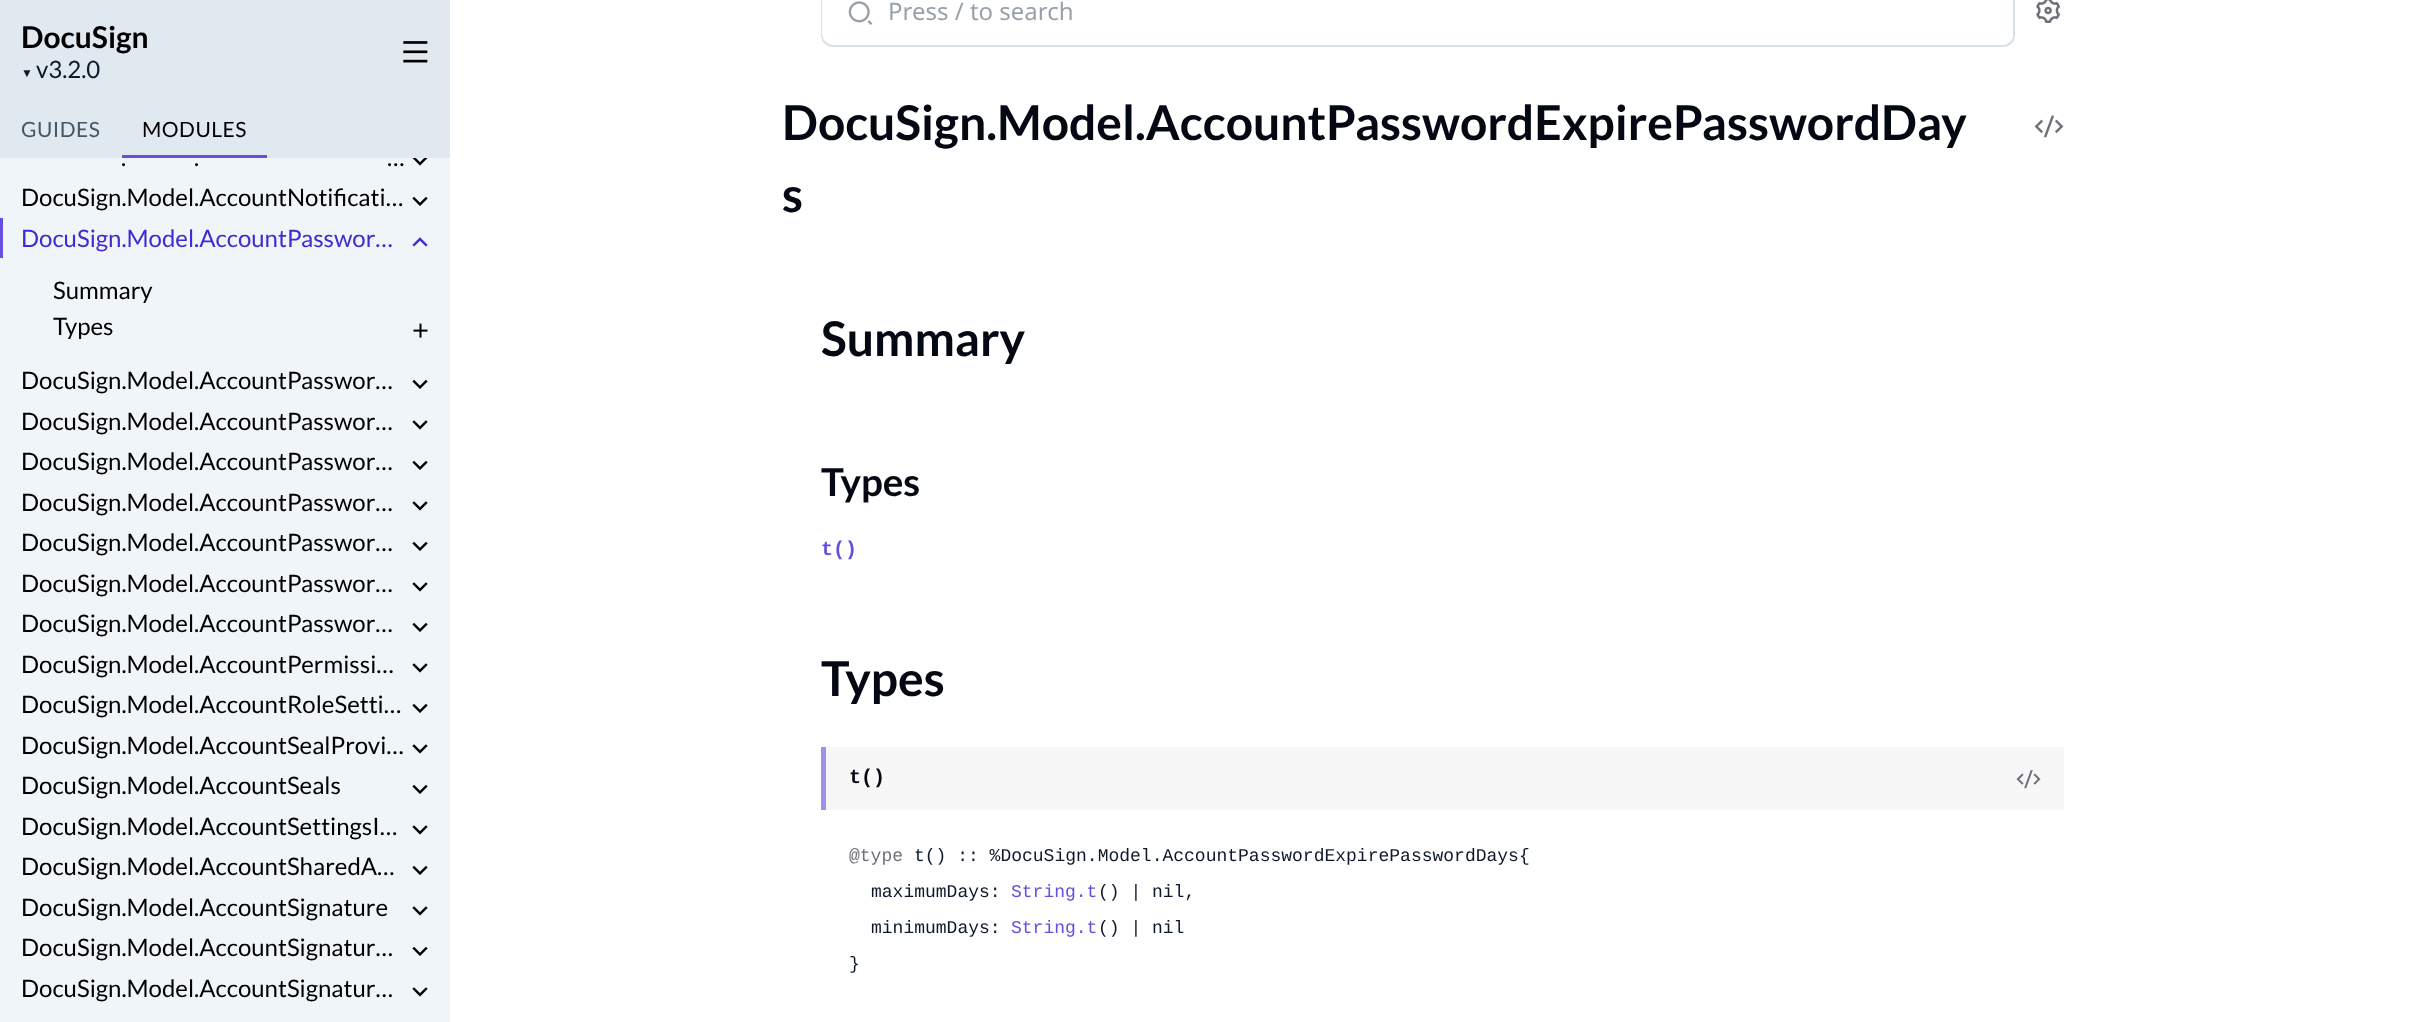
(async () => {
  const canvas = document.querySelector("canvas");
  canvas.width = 2434;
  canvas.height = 1022;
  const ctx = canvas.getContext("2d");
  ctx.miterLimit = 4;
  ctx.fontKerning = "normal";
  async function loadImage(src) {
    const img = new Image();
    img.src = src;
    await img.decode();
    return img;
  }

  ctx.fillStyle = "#ffffff";
  ctx.fillRect(0, 0, 2434, 1022);
  for (const [x, y, w, h, color] of [
    [0, 158, 450, 864, "#f0f5f9"],
    [0, 0, 450, 158, "#e0e8f0"],
    [122, 155, 145, 3, "#674fde"],
  ]) {
    ctx.fillStyle = color;
    ctx.fillRect(x, y, w, h);
  }
  ctx.drawImage(await loadImage("img/1.png"), 412, 158, 16, 8);
  ctx.drawImage(await loadImage("img/2.png"), 412, 196, 16, 10);
  ctx.fillRect(0, 218, 3, 40);
  ctx.drawImage(await loadImage("img/3.png"), 412, 237, 16, 10);
  ctx.drawImage(await loadImage("img/4.png"), 413, 323, 15, 15);
  ctx.drawImage(await loadImage("img/2.png"), 412, 379, 16, 10);
  ctx.drawImage(await loadImage("img/5.png"), 412, 420, 16, 10);
  ctx.drawImage(await loadImage("img/2.png"), 412, 460, 16, 10);
  ctx.drawImage(await loadImage("img/5.png"), 412, 501, 16, 10);
  ctx.drawImage(await loadImage("img/2.png"), 412, 541, 16, 10);
  ctx.drawImage(await loadImage("img/5.png"), 412, 582, 16, 10);
  ctx.drawImage(await loadImage("img/2.png"), 412, 622, 16, 10);
  ctx.drawImage(await loadImage("img/5.png"), 412, 663, 16, 10);
  ctx.drawImage(await loadImage("img/2.png"), 412, 703, 16, 10);
  ctx.drawImage(await loadImage("img/5.png"), 412, 744, 16, 10);
  ctx.drawImage(await loadImage("img/2.png"), 412, 784, 16, 10);
  ctx.drawImage(await loadImage("img/5.png"), 412, 825, 16, 10);
  ctx.drawImage(await loadImage("img/2.png"), 412, 865, 16, 10);
  ctx.drawImage(await loadImage("img/5.png"), 412, 906, 16, 10);
  ctx.drawImage(await loadImage("img/2.png"), 412, 946, 16, 10);
  ctx.drawImage(await loadImage("img/5.png"), 412, 987, 16, 10);
  ctx.drawImage(await loadImage("img/6.png"), 403, 41, 25, 22);
  ctx.beginPath();
  ctx.roundRect(822, -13, 1192, 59, 11);
  ctx.strokeStyle = "#d8e0e9";
  ctx.lineWidth = 2;
  ctx.stroke();
  ctx.fillStyle = "#ffffff";
  ctx.beginPath();
  ctx.roundRect(822, -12, 1191, 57, 12);
  ctx.fill();
  ctx.drawImage(await loadImage("img/7.png"), 848, 1, 25, 24);
  ctx.drawImage(await loadImage("img/8.png"), 2036, 0, 25, 23);
  ctx.drawImage(await loadImage("img/9.png"), 2034, 115, 30, 23);
  ctx.fillStyle = "#f7f7f8";
  ctx.fillRect(826, 747, 1238, 63);
  ctx.fillStyle = "#9f90ea";
  ctx.fillRect(821, 747, 5, 63);
  ctx.drawImage(await loadImage("img/10.png"), 2016, 770, 25, 19);
  ctx.font = "bold 30px Lato";
  ctx.fillStyle = "#000000";
  ctx.fillText("DocuSign", 21, 48);
  ctx.font = "12px Liberation Sans";
  ctx.fillStyle = "#0d192b";
  ctx.fillText("▼", 21, 77);
  ctx.font = "24px Lato";
  ctx.fillText("v3.2.0", 36, 78);
  ctx.letterSpacing = "0.5px";
  ctx.font = "21px Lato";
  ctx.fillStyle = "#445769";
  ctx.fillText("GUIDES", 21, 137);
  ctx.fillStyle = "#000000";
  ctx.fillText("MODULES", 142, 137);
  ctx.letterSpacing = "0px";
  ctx.font = "24px Lato";
  for (const [text, x, y] of [
    [".", 121, 166],
    [".", 194, 166],
    ["…", 387, 166],
    ["DocuSign.Model.AccountNotificati…", 21, 206],
  ]) {
    ctx.fillText(text, x, y);
  }
  ctx.fillStyle = "#4428d2";
  ctx.fillText("DocuSign.Model.AccountPasswor…", 21, 247);
  ctx.fillStyle = "#000000";
  for (const [text, x, y] of [
    ["Summary", 53, 299],
    ["Types", 53, 335],
    ["DocuSign.Model.AccountPasswor…", 21, 389],
    ["DocuSign.Model.AccountPasswor…", 21, 430],
    ["DocuSign.Model.AccountPasswor…", 21, 470],
    ["DocuSign.Model.AccountPasswor…", 21, 511],
    ["DocuSign.Model.AccountPasswor…", 21, 551],
    ["DocuSign.Model.AccountPasswor…", 21, 592],
    ["DocuSign.Model.AccountPasswor…", 21, 632],
    ["DocuSign.Model.AccountPermissi…", 21, 673],
    ["DocuSign.Model.AccountRoleSetti…", 21, 713],
    ["DocuSign.Model.AccountSealProvi…", 21, 754],
    ["DocuSign.Model.AccountSeals", 21, 794],
    ["DocuSign.Model.AccountSettingsI…", 21, 835],
    ["DocuSign.Model.AccountSharedA…", 21, 875],
    ["DocuSign.Model.AccountSignature", 21, 916],
    ["DocuSign.Model.AccountSignatur…", 21, 956],
    ["DocuSign.Model.AccountSignatur…", 21, 997],
  ]) {
    ctx.fillText(text, x, y);
  }
  ctx.font = "24px Noto Sans";
  ctx.fillStyle = "#98a1aa";
  ctx.fillText("Press / to search", 888, 20);
  ctx.font = "bold 48px Lato";
  ctx.fillStyle = "#030812";
  for (const [text, x, y] of [
    ["DocuSign.Model.AccountPasswordExpirePasswordDay", 782, 140],
    ["s", 782, 212],
    ["Summary", 821, 356],
  ]) {
    ctx.fillText(text, x, y);
  }
  ctx.font = "bold 38.5px Lato";
  ctx.fillText("Types", 821, 496);
  ctx.font = "bold 20px Liberation Mono";
  ctx.fillStyle = "#674fde";
  ctx.fillText("t()", 821, 555);
  ctx.font = "bold 48px Lato";
  ctx.fillStyle = "#030812";
  ctx.fillText("Types", 821, 696);
  ctx.font = "bold 20px Liberation Mono";
  ctx.fillText("t()", 849, 783);
  ctx.font = "18px Liberation Mono";
  ctx.fillStyle = "#6f6f7b";
  ctx.fillText("@type", 849, 861);
  ctx.fillStyle = "#0d192b";
  ctx.fillText("t() :: %DocuSign.Model.AccountPasswordExpirePasswordDays{", 914, 861);
  ctx.fillText("maximumDays:", 871, 897);
  ctx.fillStyle = "#674fde";
  ctx.fillText("String.t", 1011, 897);
  ctx.fillStyle = "#0d192b";
  ctx.fillText("() | nil,", 1098, 897);
  ctx.fillText("minimumDays:", 871, 933);
  ctx.fillStyle = "#674fde";
  ctx.fillText("String.t", 1011, 933);
  ctx.fillStyle = "#0d192b";
  ctx.fillText("() | nil", 1098, 933);
  ctx.fillText("}", 849, 969);
})();
